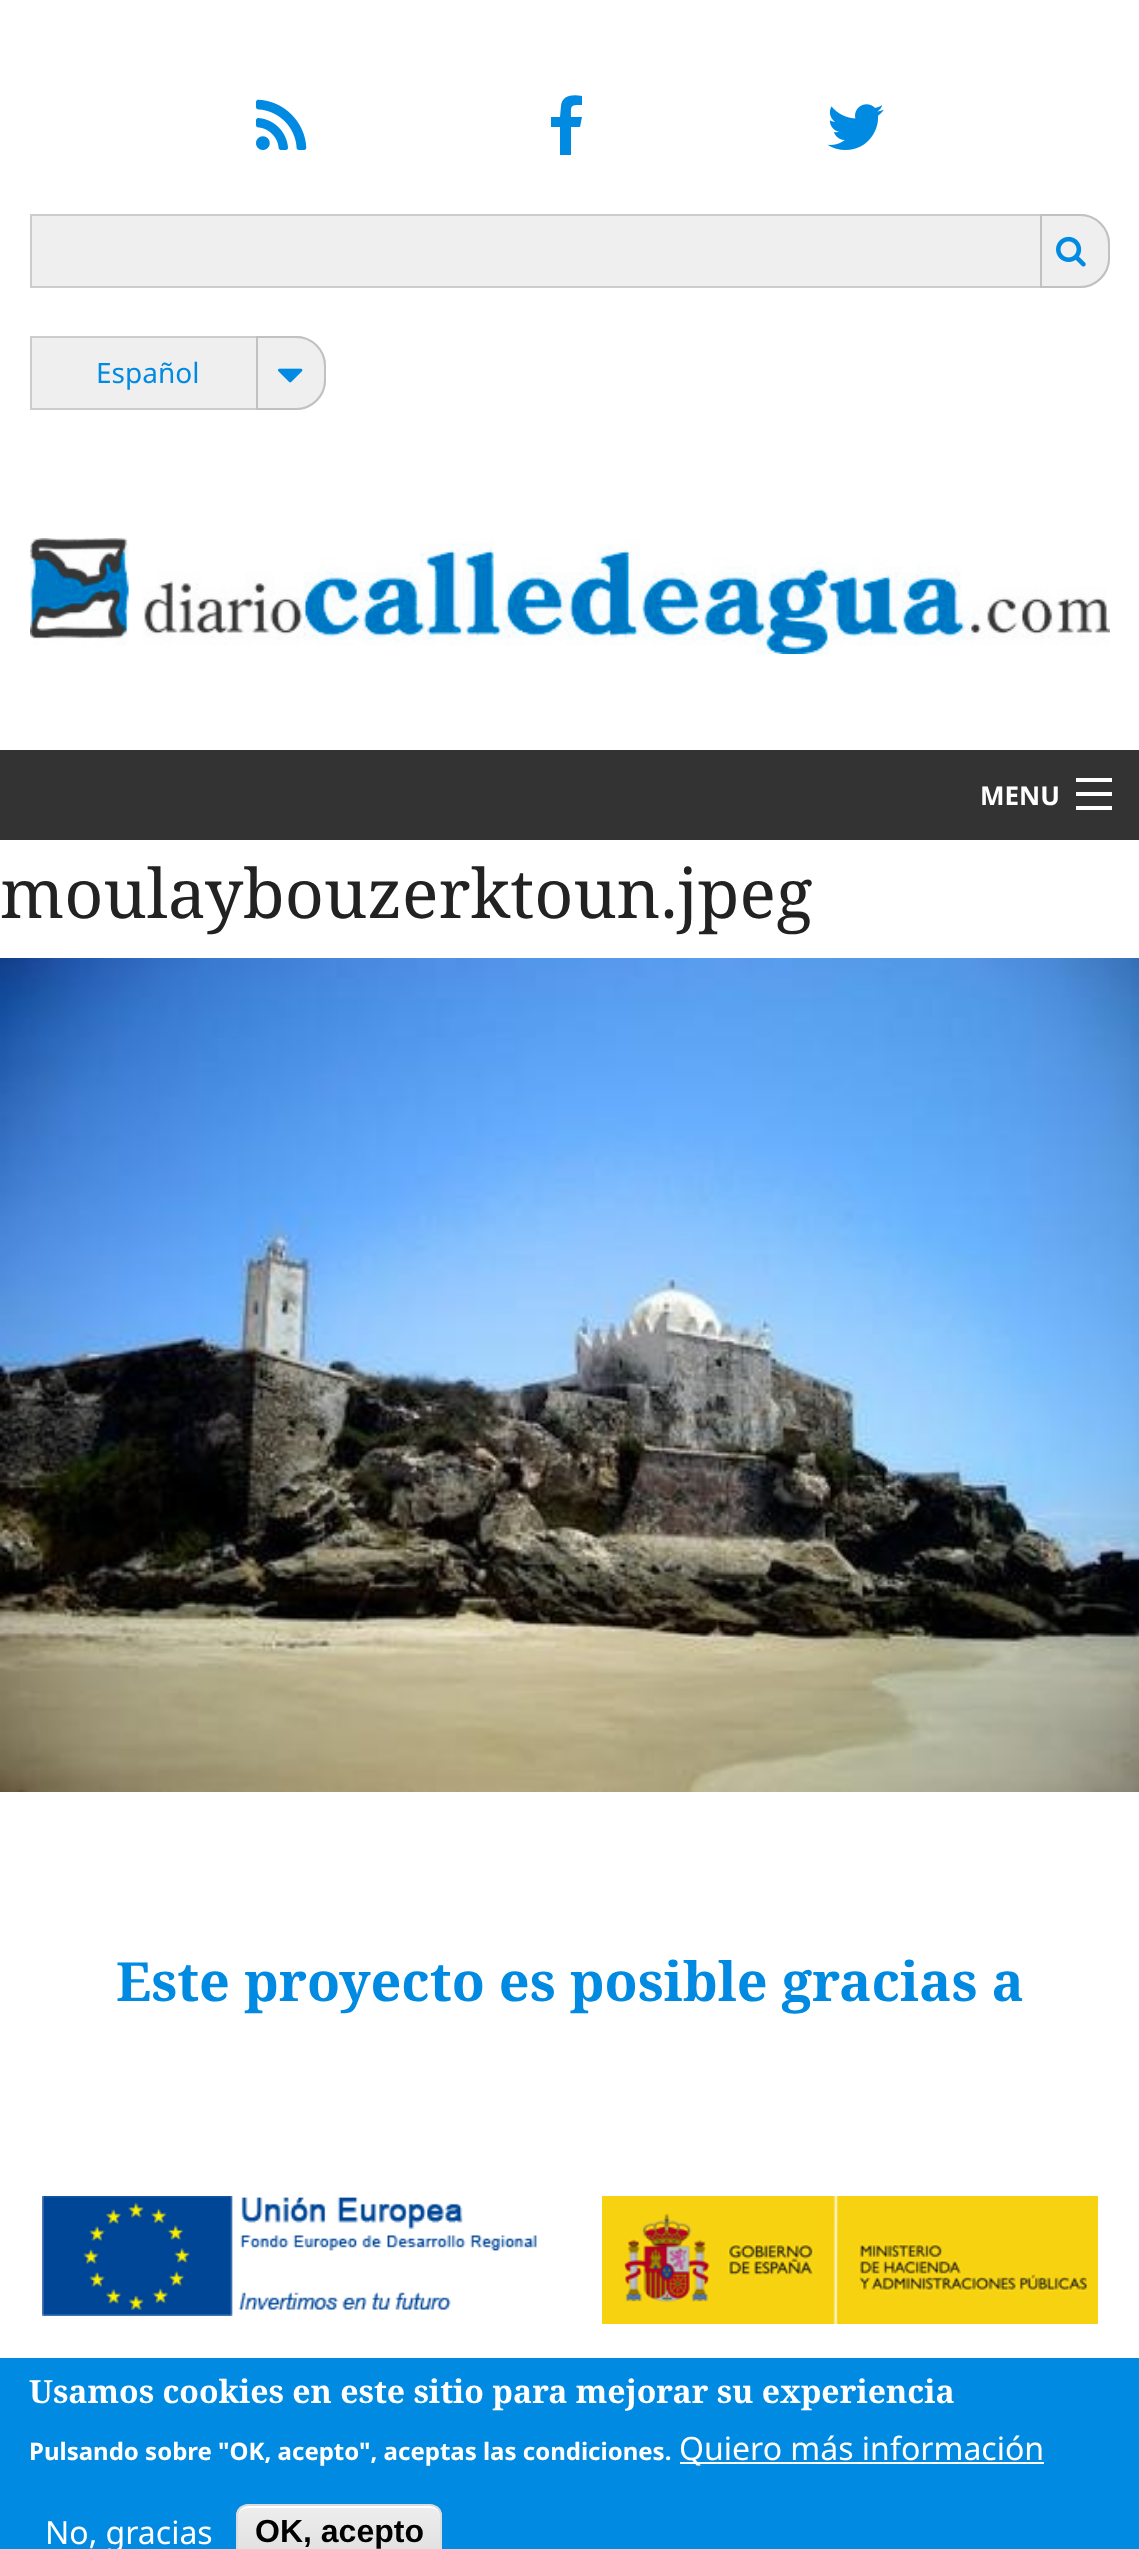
(async () => {
  const canvas = document.querySelector("canvas");
  canvas.width = 1139;
  canvas.height = 2549;
  const ctx = canvas.getContext("2d");
  ctx.miterLimit = 4;
  ctx.fontKerning = "normal";
  async function loadImage(src) {
    const img = new Image();
    img.src = src;
    await img.decode();
    return img;
  }
  let gradient, path;

  ctx.fillStyle = "#ffffff";
  ctx.fillRect(0, 0, 1139, 2549);
  ctx.drawImage(await loadImage("img/1.png"), 256, 99, 51, 51);
  ctx.fillStyle = "#008ae1";
  path = new Path2D("M582 96V105C570 105 571 105 571 117H582L580 127H571V155H560V127H551V117H560L561 106C562 95 573 94 582 96Z");
  ctx.fill(path);
  ctx.drawImage(await loadImage("img/2.png"), 827, 104, 57, 46);
  ctx.fillStyle = "#efefef";
  ctx.beginPath();
  ctx.roundRect(31, 215, 1078, 72, [0, 29, 29, 0]);
  ctx.fill();
  ctx.strokeStyle = "#cccccc";
  ctx.lineWidth = 2;
  ctx.stroke();
  ctx.beginPath();
  ctx.roundRect(1041, 215, 68, 72, [0, 29, 29, 0]);
  ctx.fill();
  ctx.strokeStyle = "#c1c1c1";
  ctx.stroke();
  ctx.drawImage(await loadImage("img/3.png"), 1056, 236, 30, 31);
  ctx.beginPath();
  ctx.roundRect(31, 337, 294, 72, [0, 29, 29, 0]);
  ctx.fill();
  ctx.strokeStyle = "#cccccc";
  ctx.stroke();
  ctx.beginPath();
  ctx.roundRect(257, 337, 68, 72, [0, 29, 29, 0]);
  ctx.fill();
  ctx.strokeStyle = "#c1c1c1";
  ctx.stroke();
  ctx.drawImage(await loadImage("img/4.png"), 278, 368, 25, 15);
  ctx.drawImage(await loadImage("img/5.png"), 30, 538, 1080, 116);
  for (const [x, y, w, h, color] of [
    [0, 750, 1139, 90, "#333333"],
    [1076, 806, 36, 4, "#ffffff"],
    [1076, 792, 36, 4, "#ffffff"],
    [1076, 778, 36, 4, "#ffffff"],
  ]) {
    ctx.fillStyle = color;
    ctx.fillRect(x, y, w, h);
  }
  ctx.drawImage(await loadImage("img/6.png"), 0, 958, 1139, 834);
  ctx.drawImage(await loadImage("img/7.png"), 42, 2196, 495, 120);
  ctx.drawImage(await loadImage("img/8.png"), 602, 2196, 496, 128);
  ctx.fillStyle = "#008ae1";
  ctx.fillRect(0, 2358, 1139, 191);
  ctx.fillStyle = "#ffffff";
  ctx.fillRect(680, 2462, 364, 2);
  ctx.save();
  ctx.beginPath();
  ctx.roundRect(236, 2504, 206, 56, 12);
  ctx.clip();
  gradient = ctx.createLinearGradient(339, 2506, 339, 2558);
  gradient.addColorStop(0.05, "#ededed");
  gradient.addColorStop(1, "#dfdfdf");
  ctx.fillStyle = gradient;
  ctx.fillRect(236, 2506, 206, 43);
  ctx.restore();
  path = new Path2D("M248 2508H430C436 2508 440 2512 440 2518V2516C440 2510 436 2506 430 2506H248C242 2506 238 2510 238 2516V2518C238 2512 242 2508 248 2508Z");
  ctx.fill(path);
  ctx.beginPath();
  ctx.roundRect(237, 2505, 204, 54, 11);
  ctx.strokeStyle = "#dcdcdc";
  ctx.stroke();
  ctx.font = "28px Noto Sans";
  ctx.fillStyle = "#008ae1";
  ctx.fillText("Español", 96, 383);
  ctx.font = "bold 26px Noto Sans";
  ctx.fillStyle = "#ffffff";
  ctx.fillText("MENU", 980, 805);
  ctx.font = "68px Noto Serif";
  ctx.fillStyle = "#222222";
  ctx.fillText("moulaybouzerktoun.jpeg", 0, 918);
  ctx.font = "bold 54px Noto Serif";
  ctx.fillStyle = "#008ae1";
  ctx.fillText("Este proyecto es posible gracias a", 116, 2001);
  ctx.font = "bold 32px Noto Serif";
  ctx.fillStyle = "#ffffff";
  ctx.fillText("Usamos cookies en este sitio para mejorar su experiencia", 29, 2403);
  ctx.font = "bold 24px Noto Sans";
  ctx.fillText("Pulsando sobre \"OK, acepto\", aceptas las condiciones.", 29, 2460);
  ctx.font = "32px Noto Sans";
  ctx.fillText("Quiero más información", 679, 2460);
  ctx.fillText("No, gracias", 45, 2544);
  ctx.font = "bold 32px Liberation Sans";
  ctx.fillStyle = "#000000";
  ctx.fillText("OK, acepto", 255, 2542);
})();
